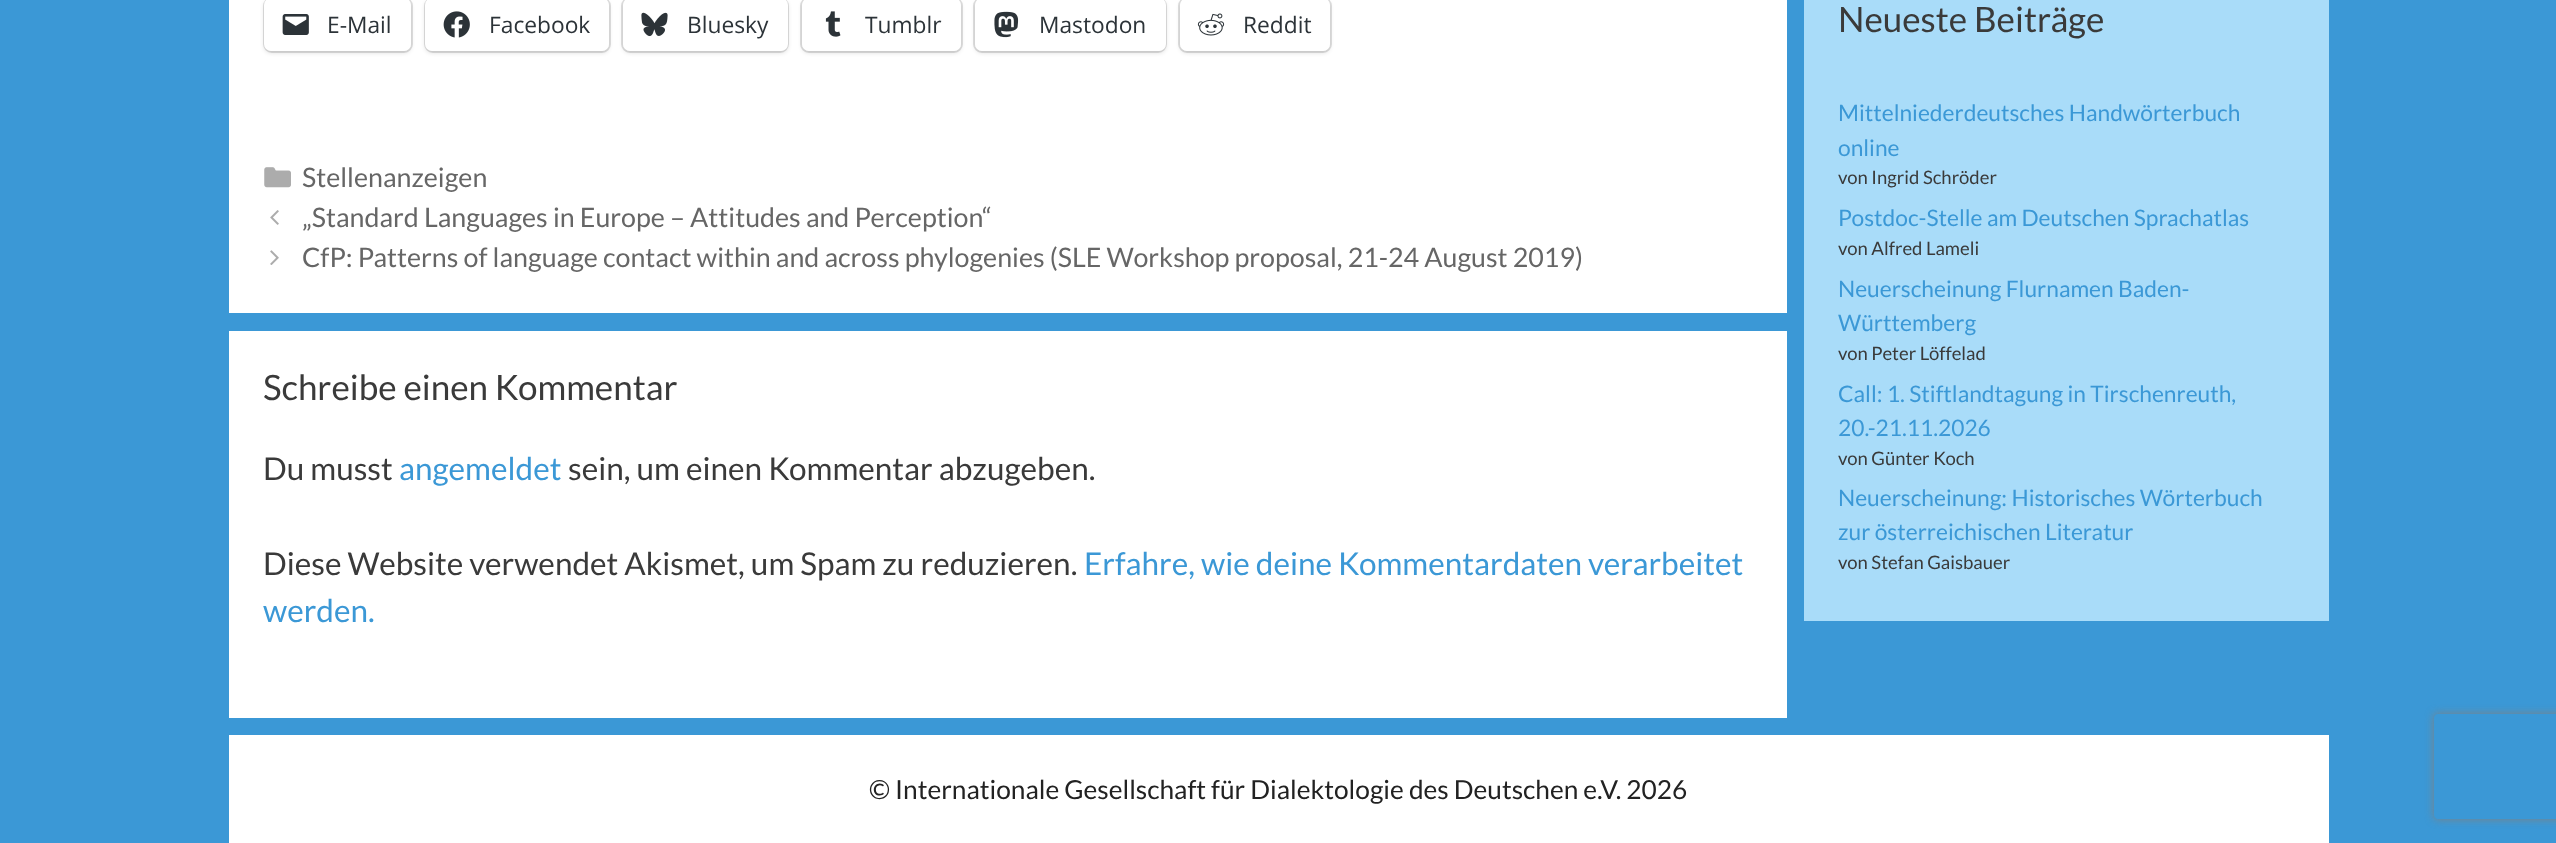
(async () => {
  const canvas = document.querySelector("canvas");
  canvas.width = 2556;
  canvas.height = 843;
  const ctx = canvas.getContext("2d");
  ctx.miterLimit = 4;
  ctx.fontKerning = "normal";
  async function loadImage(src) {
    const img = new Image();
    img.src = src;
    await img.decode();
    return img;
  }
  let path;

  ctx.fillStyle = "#3b98d6";
  ctx.fillRect(0, 0, 2556, 843);
  ctx.fillStyle = "#ffffff";
  ctx.fillRect(229, 0, 1558, 313);
  ctx.beginPath();
  ctx.roundRect(264, -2, 148, 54, 8);
  ctx.strokeStyle = "#e0e0e0";
  ctx.lineWidth = 2;
  ctx.stroke();
  ctx.fillStyle = "rgba(0, 0, 0, 0.12)";
  ctx.filter = "blur(2px)";
  ctx.beginPath();
  ctx.roundRect(264, 0, 147, 53, 7);
  ctx.fill();
  ctx.filter = "none";
  ctx.fillStyle = "#ffffff";
  ctx.beginPath();
  ctx.roundRect(264, -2, 147, 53, 7);
  ctx.fill();
  ctx.drawImage(await loadImage("img/1.png"), 282, 14, 27, 21);
  ctx.beginPath();
  ctx.roundRect(425, -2, 185, 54, 8);
  ctx.stroke();
  ctx.fillStyle = "rgba(0, 0, 0, 0.12)";
  ctx.filter = "blur(2px)";
  ctx.beginPath();
  ctx.roundRect(425, 0, 184, 53, 7);
  ctx.fill();
  ctx.filter = "none";
  ctx.fillStyle = "#ffffff";
  ctx.beginPath();
  ctx.roundRect(425, -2, 184, 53, 7);
  ctx.fill();
  ctx.drawImage(await loadImage("img/2.png"), 443, 11, 27, 27);
  ctx.beginPath();
  ctx.roundRect(622, -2, 166, 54, 8);
  ctx.stroke();
  ctx.fillStyle = "rgba(0, 0, 0, 0.12)";
  ctx.filter = "blur(2px)";
  ctx.beginPath();
  ctx.roundRect(623, 0, 165, 53, 7);
  ctx.fill();
  ctx.filter = "none";
  ctx.fillStyle = "#ffffff";
  ctx.beginPath();
  ctx.roundRect(623, -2, 165, 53, 7);
  ctx.fill();
  ctx.drawImage(await loadImage("img/3.png"), 641, 12, 27, 25);
  ctx.beginPath();
  ctx.roundRect(801, -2, 161, 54, 8);
  ctx.stroke();
  ctx.fillStyle = "rgba(0, 0, 0, 0.12)";
  ctx.filter = "blur(2px)";
  ctx.beginPath();
  ctx.roundRect(802, 0, 159, 53, 7);
  ctx.fill();
  ctx.filter = "none";
  ctx.fillStyle = "#ffffff";
  ctx.beginPath();
  ctx.roundRect(802, -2, 159, 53, 7);
  ctx.fill();
  ctx.drawImage(await loadImage("img/4.png"), 825, 11, 16, 26);
  ctx.beginPath();
  ctx.roundRect(974, -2, 192, 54, 8);
  ctx.stroke();
  ctx.fillStyle = "rgba(0, 0, 0, 0.12)";
  ctx.filter = "blur(2px)";
  ctx.beginPath();
  ctx.roundRect(975, 0, 191, 53, 7);
  ctx.fill();
  ctx.filter = "none";
  ctx.fillStyle = "#ffffff";
  ctx.beginPath();
  ctx.roundRect(975, -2, 191, 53, 7);
  ctx.fill();
  ctx.drawImage(await loadImage("img/5.png"), 994, 11, 25, 27);
  ctx.beginPath();
  ctx.roundRect(1179, -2, 152, 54, 8);
  ctx.stroke();
  ctx.fillStyle = "rgba(0, 0, 0, 0.12)";
  ctx.filter = "blur(2px)";
  ctx.beginPath();
  ctx.roundRect(1180, 0, 150, 53, 7);
  ctx.fill();
  ctx.filter = "none";
  ctx.fillStyle = "#ffffff";
  ctx.beginPath();
  ctx.roundRect(1180, -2, 150, 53, 7);
  ctx.fill();
  ctx.drawImage(await loadImage("img/6.png"), 1197, 13, 28, 23);
  ctx.drawImage(await loadImage("img/7.png"), 264, 167, 27, 21);
  ctx.drawImage(await loadImage("img/8.png"), 270, 210, 9, 15);
  ctx.drawImage(await loadImage("img/9.png"), 270, 250, 9, 15);
  for (const [x, y, w, h, color] of [
    [229, 331, 1558, 387, "#ffffff"],
    [1804, 0, 525, 621, "#a9dcf9"],
    [229, 735, 2100, 108, "#ffffff"],
  ]) {
    ctx.fillStyle = color;
    ctx.fillRect(x, y, w, h);
  }
  ctx.save();
  path = new Path2D("M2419 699H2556V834H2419ZM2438 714H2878C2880 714 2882 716 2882 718V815C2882 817 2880 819 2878 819H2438C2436 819 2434 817 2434 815V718C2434 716 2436 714 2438 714Z");
  ctx.clip(path, "evenodd");
  ctx.fillStyle = "#808080";
  ctx.filter = "blur(4.5px)";
  ctx.beginPath();
  ctx.roundRect(2434, 714, 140, 105, 4);
  ctx.fill();
  ctx.filter = "none";
  ctx.restore();
  ctx.font = "22.75px Open Sans";
  ctx.fillStyle = "#2c3338";
  for (const [text, x, y] of [
    ["E-Mail", 327, 33],
    ["Facebook", 489, 33],
    ["Bluesky", 687, 33],
    ["Tumblr", 865, 33],
    ["Mastodon", 1039, 33],
    ["Reddit", 1243, 33],
  ]) {
    ctx.fillText(text, x, y);
  }
  ctx.font = "26.8px Lato";
  ctx.fillStyle = "#666666";
  for (const [text, x, y] of [
    ["Stellenanzeigen", 302, 187],
    ["„Standard Languages in Europe – Attitudes and Perception“", 302, 227],
    ["CfP: Patterns of language contact within and across phylogenies (SLE Workshop proposal, 21-24 August 2019)", 302, 267],
  ]) {
    ctx.fillText(text, x, y);
  }
  ctx.font = "35px Lato";
  ctx.fillStyle = "#3a3a3a";
  ctx.fillText("Schreibe einen Kommentar", 263, 400);
  ctx.font = "31.5px Lato";
  ctx.fillText("Du musst", 263, 480);
  ctx.fillStyle = "#3b98d6";
  ctx.fillText("angemeldet", 399, 480);
  ctx.fillStyle = "#3a3a3a";
  ctx.fillText("sein, um einen Kommentar abzugeben.", 568, 480);
  ctx.fillText("Diese Website verwendet Akismet, um Spam zu reduzieren.", 263, 575);
  ctx.fillStyle = "#3b98d6";
  ctx.fillText("Erfahre, wie deine Kommentardaten verarbeitet", 1084, 575);
  ctx.fillText("werden.", 263, 622);
  ctx.font = "35px Lato";
  ctx.fillStyle = "#3a3a3a";
  ctx.fillText("Neueste Beiträge", 1838, 32);
  ctx.font = "22.75px Lato";
  ctx.fillStyle = "#3b98d6";
  ctx.fillText("Mittelniederdeutsches Handwörterbuch", 1838, 121);
  ctx.fillText("online", 1838, 156);
  ctx.font = "18.5px Lato";
  ctx.fillStyle = "#3a3a3a";
  ctx.fillText("von Ingrid Schröder", 1838, 184);
  ctx.font = "22.75px Lato";
  ctx.fillStyle = "#3b98d6";
  ctx.fillText("Postdoc-Stelle am Deutschen Sprachatlas", 1838, 226);
  ctx.font = "18.5px Lato";
  ctx.fillStyle = "#3a3a3a";
  ctx.fillText("von Alfred Lameli", 1838, 255);
  ctx.font = "22.75px Lato";
  ctx.fillStyle = "#3b98d6";
  ctx.fillText("Neuerscheinung Flurnamen Baden-", 1838, 297);
  ctx.fillText("Württemberg", 1838, 331);
  ctx.font = "18.5px Lato";
  ctx.fillStyle = "#3a3a3a";
  ctx.fillText("von Peter Löffelad", 1838, 360);
  ctx.font = "22.75px Lato";
  ctx.fillStyle = "#3b98d6";
  ctx.fillText("Call: 1. Stiftlandtagung in Tirschenreuth,", 1838, 402);
  ctx.fillText("20.-21.11.2026", 1838, 436);
  ctx.font = "18.5px Lato";
  ctx.fillStyle = "#3a3a3a";
  ctx.fillText("von Günter Koch", 1838, 465);
  ctx.font = "22.75px Lato";
  ctx.fillStyle = "#3b98d6";
  ctx.fillText("Neuerscheinung: Historisches Wörterbuch", 1838, 506);
  ctx.fillText("zur österreichischen Literatur", 1838, 540);
  ctx.font = "18.5px Lato";
  ctx.fillStyle = "#3a3a3a";
  ctx.fillText("von Stefan Gaisbauer", 1838, 569);
  ctx.font = "26.25px Lato";
  ctx.fillStyle = "#222222";
  ctx.fillText("© Internationale Gesellschaft für Dialektologie des Deutschen e.V. 2026", 869, 799);
})();
